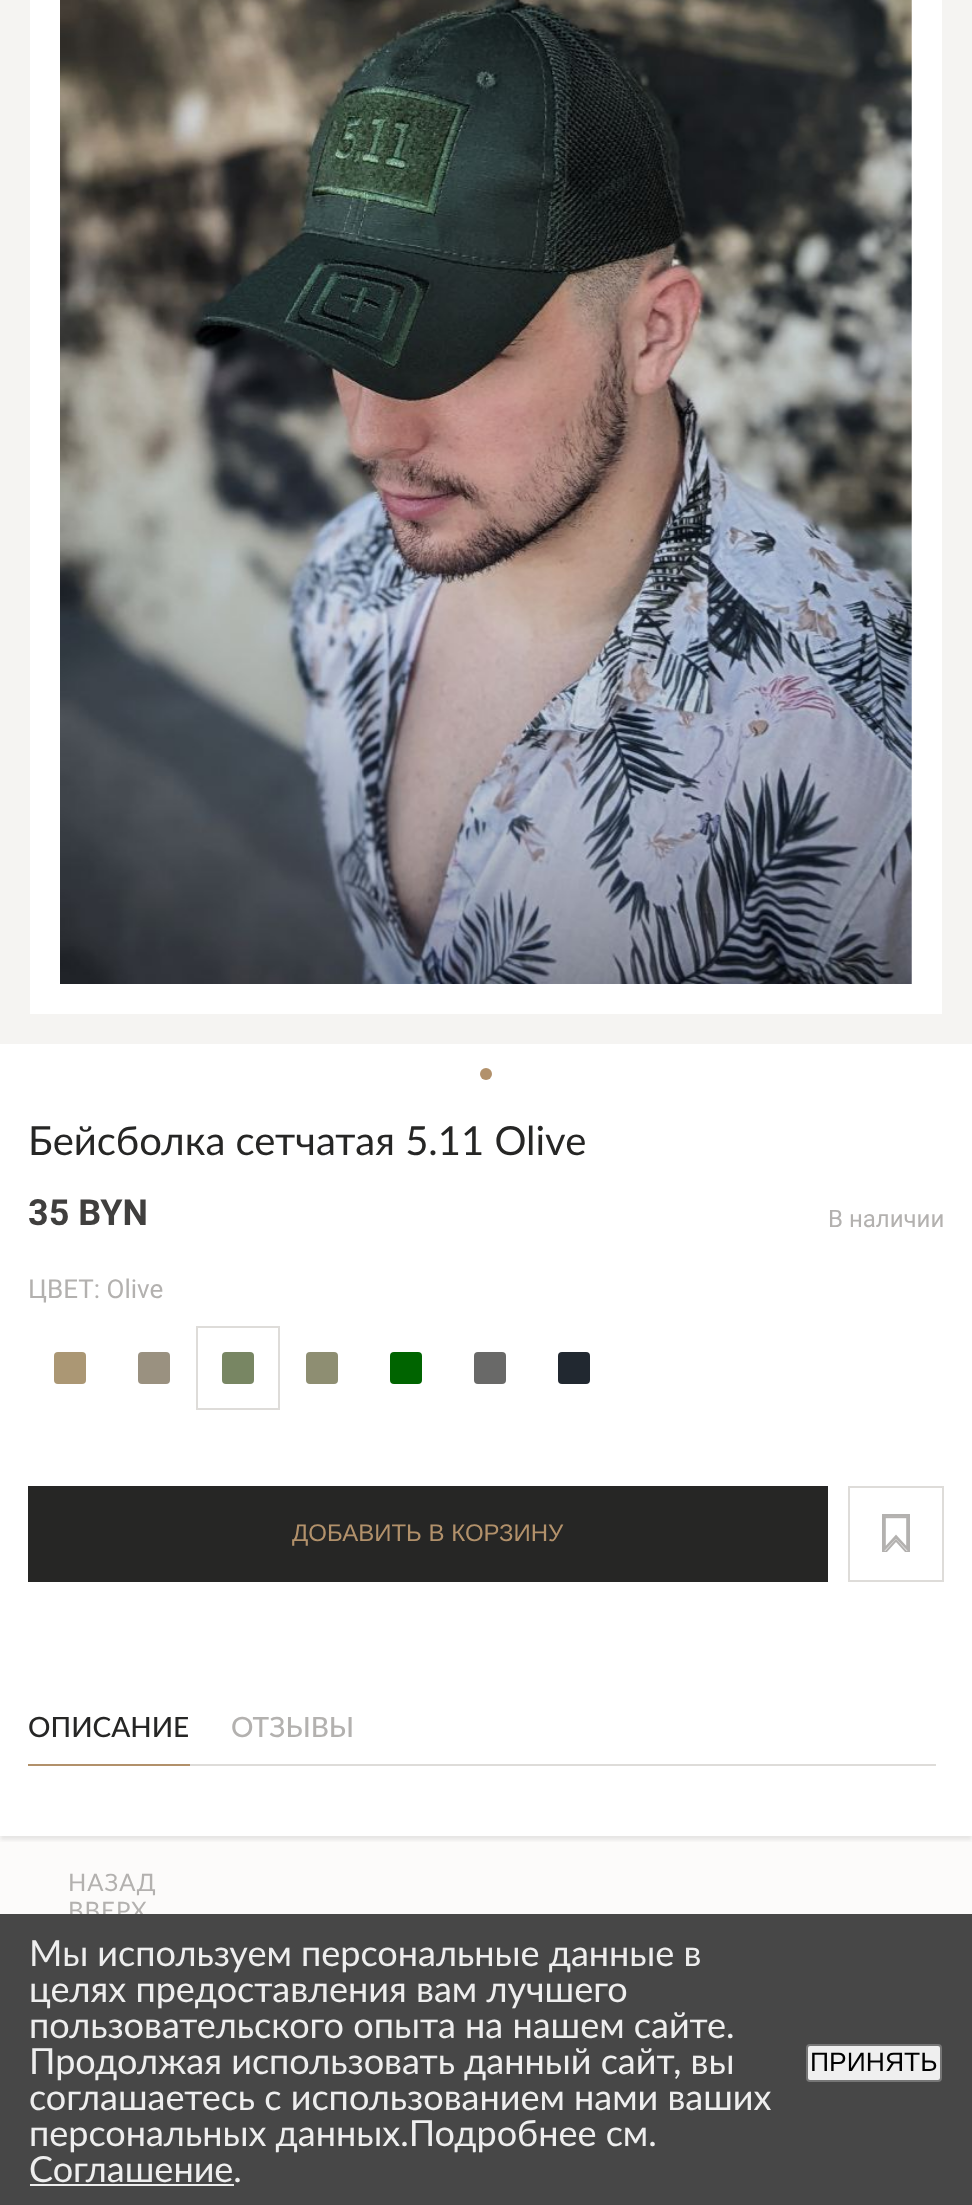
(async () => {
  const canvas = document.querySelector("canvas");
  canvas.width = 972;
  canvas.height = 2205;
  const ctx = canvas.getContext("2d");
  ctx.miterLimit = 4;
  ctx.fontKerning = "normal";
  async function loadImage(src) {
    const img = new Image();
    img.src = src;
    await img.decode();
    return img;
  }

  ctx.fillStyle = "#fcfbfa";
  ctx.fillRect(0, 0, 972, 2205);
  ctx.fillStyle = "#ffffff";
  ctx.fillRect(0, 0, 972, 1836);
  ctx.save();
  ctx.beginPath();
  ctx.rect(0, 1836, 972, 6);
  ctx.clip();
  ctx.fillStyle = "rgba(38, 38, 37, 0.1)";
  ctx.filter = "blur(2px)";
  ctx.beginPath();
  ctx.rect(0, -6, 972, 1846);
  ctx.fill();
  ctx.filter = "none";
  ctx.restore();
  ctx.strokeStyle = "#f5f4f2";
  ctx.lineWidth = 30;
  ctx.strokeRect(15, -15, 942, 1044);
  ctx.drawImage(await loadImage("img/1.png"), 60, 0, 852, 984);
  ctx.fillStyle = "#b2916b";
  ctx.beginPath();
  ctx.arc(486, 1074, 6, 0, Math.PI * 2);
  ctx.fill();
  ctx.fillStyle = "#ab9774";
  ctx.beginPath();
  ctx.roundRect(54, 1352, 32, 32, 4);
  ctx.fill();
  ctx.fillStyle = "#9a9180";
  ctx.beginPath();
  ctx.roundRect(138, 1352, 32, 32, 4);
  ctx.fill();
  ctx.strokeStyle = "#dedcd9";
  ctx.lineWidth = 2;
  ctx.strokeRect(197, 1327, 82, 82);
  ctx.fillStyle = "#788663";
  ctx.beginPath();
  ctx.roundRect(222, 1352, 32, 32, 4);
  ctx.fill();
  ctx.fillStyle = "#8e8e72";
  ctx.beginPath();
  ctx.roundRect(306, 1352, 32, 32, 4);
  ctx.fill();
  ctx.fillStyle = "#006400";
  ctx.beginPath();
  ctx.roundRect(390, 1352, 32, 32, 4);
  ctx.fill();
  ctx.fillStyle = "#696968";
  ctx.beginPath();
  ctx.roundRect(474, 1352, 32, 32, 4);
  ctx.fill();
  ctx.fillStyle = "#212830";
  ctx.beginPath();
  ctx.roundRect(558, 1352, 32, 32, 4);
  ctx.fill();
  ctx.fillStyle = "#262625";
  ctx.fillRect(28, 1486, 800, 96);
  ctx.strokeRect(849, 1487, 94, 94);
  ctx.drawImage(await loadImage("img/2.png"), 882, 1514, 28, 38);
  ctx.fillStyle = "#dedcd9";
  ctx.fillRect(190, 1764, 746, 2);
  ctx.fillStyle = "#b2916b";
  ctx.fillRect(28, 1764, 162, 2);
  ctx.font = "40px Lato";
  ctx.fillStyle = "#262625";
  ctx.fillText("Бейсболка сетчатая 5.11 Olive", 28, 1155);
  ctx.font = "bold 36px Roboto";
  ctx.fillStyle = "#403f3e";
  ctx.fillText("35 BYN", 28, 1225);
  ctx.font = "24px Roboto";
  ctx.fillStyle = "#b3b1af";
  ctx.fillText("В наличии", 828, 1227);
  ctx.font = "26px Roboto";
  ctx.fillText("ЦВЕТ: Olive", 28, 1298);
  ctx.font = "24px Liberation Sans";
  ctx.fillStyle = "#b2916b";
  ctx.fillText("ДОБАВИТЬ В КОРЗИНУ", 292, 1541);
  ctx.font = "500 28px Lato";
  ctx.fillStyle = "#262625";
  ctx.fillText("ОПИСАНИЕ", 28, 1737);
  ctx.fillStyle = "#b3b1af";
  ctx.fillText("ОТЗЫВЫ", 231, 1737);
  ctx.letterSpacing = "1px";
  ctx.font = "24px Lato";
  ctx.fillText("НАЗАД", 68, 1891);
  ctx.fillText("ВВЕРХ", 68, 1919);
  ctx.fillStyle = "#474747";
  ctx.fillRect(0, 1914, 972, 291);
  ctx.letterSpacing = "0px";
  ctx.font = "36px Lato";
  ctx.fillStyle = "#eeeeee";
  for (const [text, x, y] of [
    ["Мы используем персональные данные в", 29, 1966],
    ["целях предоставления вам лучшего", 29, 2002],
    ["пользовательского опыта на нашем сайте.", 29, 2038],
    ["Продолжая использовать данный сайт, вы", 29, 2074],
    ["соглашаетесь с использованием нами ваших", 29, 2110],
    ["персональных данных.Подробнее см.", 29, 2146],
    ["Соглашение.", 29, 2182],
  ]) {
    ctx.fillText(text, x, y);
  }
  ctx.fillRect(30, 2184, 204, 2);
  ctx.fillStyle = "#efefef";
  ctx.beginPath();
  ctx.roundRect(807, 2045, 134, 36, 3);
  ctx.fill();
  ctx.strokeStyle = "#767676";
  ctx.stroke();
  ctx.font = "26.5px Liberation Sans";
  ctx.fillStyle = "#000000";
  ctx.fillText("ПРИНЯТЬ", 810, 2071);
})();
